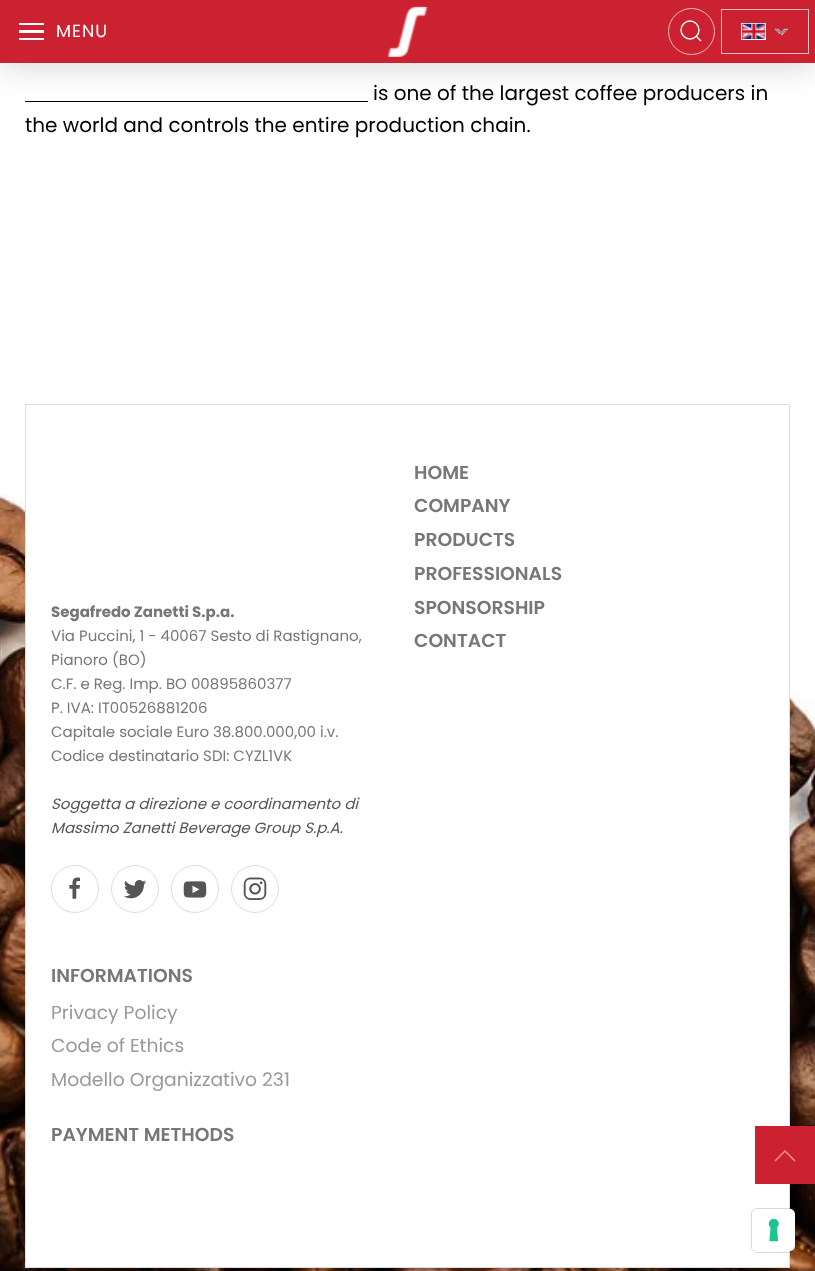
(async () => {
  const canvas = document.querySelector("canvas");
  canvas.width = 815;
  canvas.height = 1271;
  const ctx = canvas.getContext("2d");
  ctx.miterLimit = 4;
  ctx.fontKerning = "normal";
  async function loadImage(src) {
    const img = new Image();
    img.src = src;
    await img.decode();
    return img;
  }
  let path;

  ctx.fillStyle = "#ffffff";
  ctx.fillRect(0, 0, 815, 1271);
  ctx.fillStyle = "#000000";
  ctx.fillRect(25, 101, 343, 1);
  ctx.fillStyle = "rgba(0, 0, 0, 0.15)";
  ctx.filter = "blur(15.5px)";
  ctx.beginPath();
  ctx.rect(0, 5, 815, 63);
  ctx.fill();
  ctx.filter = "none";
  for (const [x, y, w, h, color] of [
    [0, 0, 815, 63, "#cc2131"],
    [19, 23, 25, 2, "#ffffff"],
    [19, 30, 25, 3, "#ffffff"],
    [19, 38, 25, 2, "#ffffff"],
  ]) {
    ctx.fillStyle = color;
    ctx.fillRect(x, y, w, h);
  }
  ctx.drawImage(await loadImage("img/1.png"), 387, 6, 41, 51);
  ctx.beginPath();
  ctx.arc(691.5, 31.5, 23, 0, Math.PI * 2);
  ctx.strokeStyle = "#f0bcc1";
  ctx.stroke();
  ctx.beginPath();
  ctx.arc(690, 30, 9, 0, Math.PI * 2);
  ctx.strokeStyle = "#ffffff";
  ctx.lineWidth = 1.4;
  ctx.stroke();
  path = new Path2D("M696 36L701 41Z");
  ctx.stroke(path);
  ctx.drawImage(await loadImage("img/2.png"), 774, 28, 14, 8);
  ctx.strokeStyle = "#f0bcc1";
  ctx.lineWidth = 1;
  ctx.strokeRect(721.5, 9.5, 87, 44);
  ctx.strokeStyle = "#ffffff";
  ctx.strokeRect(741.5, 23.5, 24, 16);
  ctx.drawImage(await loadImage("img/3.png"), 742, 23, 24, 16);
  ctx.drawImage(await loadImage("img/4.png"), 0, 494, 815, 777);
  ctx.fillRect(26, 509, 763, 758);
  ctx.strokeStyle = "#dddddd";
  ctx.strokeRect(25.5, 404.5, 764, 863);
  ctx.beginPath();
  ctx.arc(75, 889, 23.5, 0, Math.PI * 2);
  ctx.strokeStyle = "#dedede";
  ctx.stroke();
  ctx.drawImage(await loadImage("img/5.png"), 69, 877, 11, 22);
  ctx.beginPath();
  ctx.arc(135, 889, 23.5, 0, Math.PI * 2);
  ctx.stroke();
  ctx.drawImage(await loadImage("img/6.png"), 124, 880, 23, 19);
  ctx.beginPath();
  ctx.arc(195, 889, 23.5, 0, Math.PI * 2);
  ctx.stroke();
  ctx.drawImage(await loadImage("img/7.png"), 183, 881, 24, 17);
  ctx.beginPath();
  ctx.arc(255, 889, 23.5, 0, Math.PI * 2);
  ctx.stroke();
  ctx.drawImage(await loadImage("img/8.png"), 243, 877, 24, 23);
  ctx.fillStyle = "#cc2131";
  ctx.fillRect(755, 1126, 60, 58);
  path = new Path2D("M775 1161L785 1151L795 1161");
  ctx.strokeStyle = "#e69098";
  ctx.lineWidth = 1.5;
  ctx.stroke(path);
  ctx.beginPath();
  ctx.roundRect(751.5, 1208.5, 44, 44, 5.5);
  ctx.strokeStyle = "rgba(0, 0, 0, 0.15)";
  ctx.lineWidth = 1;
  ctx.stroke();
  ctx.fillStyle = "#ffffff";
  ctx.beginPath();
  ctx.roundRect(753, 1209, 42, 42, 5);
  ctx.fill();
  ctx.drawImage(await loadImage("img/9.png"), 768, 1218, 11, 24);
  ctx.letterSpacing = "1px";
  ctx.font = "17.5px Poppins";
  ctx.fillText("MENU", 56, 37);
  ctx.letterSpacing = "0px";
  ctx.font = "20px Poppins";
  ctx.fillStyle = "#000000";
  ctx.fillText("is one of the largest coffee producers in", 373, 100);
  ctx.fillText("the world and controls the entire production chain.", 25, 132);
  ctx.font = "600 18.75px Poppins";
  ctx.fillStyle = "#777777";
  for (const [text, x, y] of [
    ["HOME", 414, 479],
    ["COMPANY", 414, 512],
    ["PRODUCTS", 414, 546],
    ["PROFESSIONALS", 414, 580],
    ["SPONSORSHIP", 414, 614],
    ["CONTACT", 414, 647],
  ]) {
    ctx.fillText(text, x, y);
  }
  ctx.font = "bold 15px Poppins";
  ctx.fillText("Segafredo Zanetti S.p.a.", 51, 617);
  ctx.font = "15px Poppins";
  for (const [text, x, y] of [
    ["Via Puccini, 1 - 40067 Sesto di Rastignano,", 51, 641],
    ["Pianoro (BO)", 51, 665],
    ["C.F. e Reg. Imp. BO 00895860377", 51, 689],
    ["P. IVA: IT00526881206", 51, 713],
    ["Capitale sociale Euro 38.800.000,00 i.v.", 51, 737],
    ["Codice destinatario SDI: CYZL1VK", 51, 761],
  ]) {
    ctx.fillText(text, x, y);
  }
  ctx.font = "italic 15px Poppins";
  ctx.fillStyle = "#555555";
  ctx.fillText("Soggetta a direzione e coordinamento di", 51, 809);
  ctx.fillText("Massimo Zanetti Beverage Group S.p.A.", 51, 833);
  ctx.font = "600 18.75px Poppins";
  ctx.fillStyle = "#777777";
  ctx.fillText("INFORMATIONS", 51, 982);
  ctx.font = "18.75px Poppins";
  ctx.fillStyle = "#999999";
  for (const [text, x, y] of [
    ["Privacy Policy", 51, 1019],
    ["Code of Ethics", 51, 1052],
    ["Modello Organizzativo 231", 51, 1086],
  ]) {
    ctx.fillText(text, x, y);
  }
  ctx.font = "600 18.75px Poppins";
  ctx.fillStyle = "#777777";
  ctx.fillText("PAYMENT METHODS", 51, 1141);
})();
